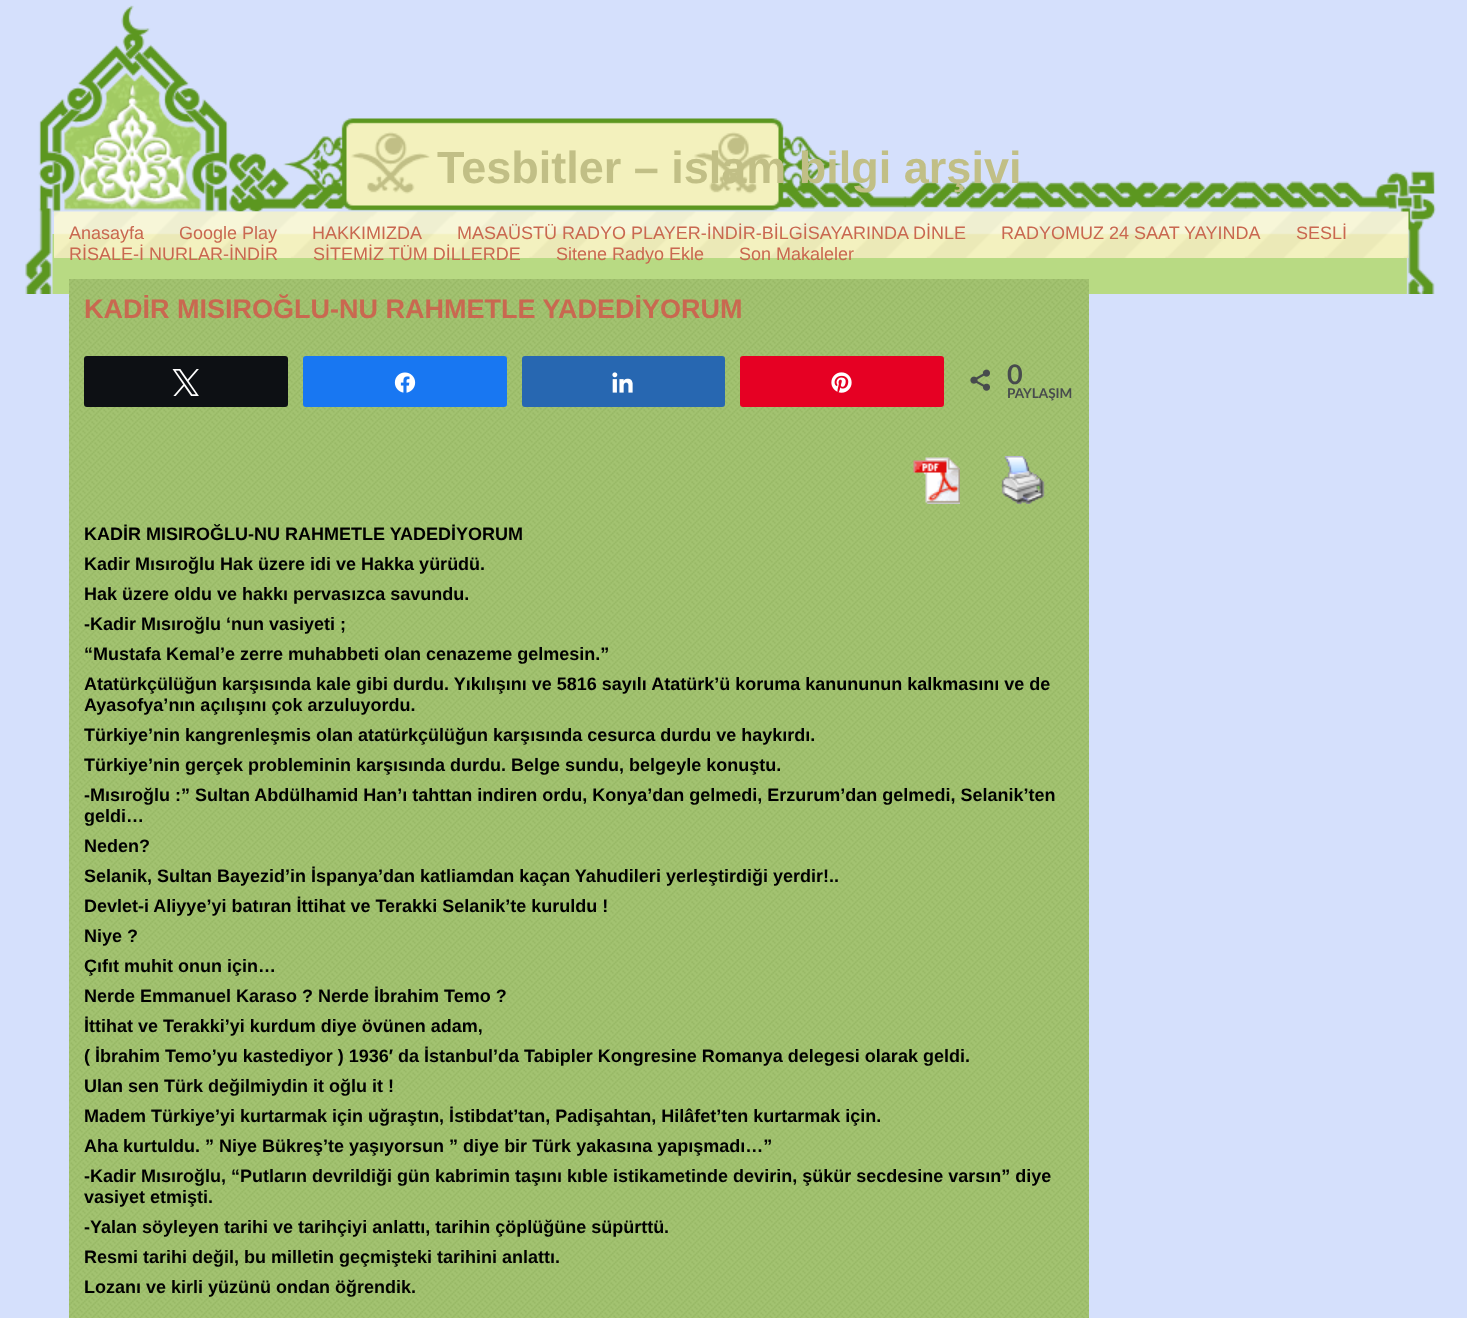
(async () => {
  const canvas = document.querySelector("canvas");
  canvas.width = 1467;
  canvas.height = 1318;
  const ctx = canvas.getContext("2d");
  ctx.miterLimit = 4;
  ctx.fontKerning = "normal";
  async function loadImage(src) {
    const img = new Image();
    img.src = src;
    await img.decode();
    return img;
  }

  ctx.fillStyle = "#d5e0fc";
  ctx.fillRect(0, 0, 1467, 1318);
  ctx.drawImage(await loadImage("img/1.png"), 38, 5, 1398, 229);
  ctx.drawImage(await loadImage("img/3.png"), 24, 234, 1419, 60);
  ctx.drawImage(await loadImage("img/2.png"), 54, 211, 1355, 47);
  ctx.drawImage(await loadImage("img/4.png"), 69, 279, 1020, 1039);
  ctx.fillStyle = "#0d1014";
  ctx.beginPath();
  ctx.roundRect(85, 357, 202, 49, 2);
  ctx.fill();
  ctx.strokeStyle = "#0d1014";
  ctx.lineWidth = 2;
  ctx.stroke();
  ctx.drawImage(await loadImage("img/5.png"), 172, 369, 27, 27);
  ctx.fillStyle = "#1877f2";
  ctx.beginPath();
  ctx.roundRect(304, 357, 202, 49, 2);
  ctx.fill();
  ctx.strokeStyle = "#1877f2";
  ctx.stroke();
  ctx.drawImage(await loadImage("img/6.png"), 394, 372, 22, 21);
  ctx.fillStyle = "#2767b1";
  ctx.beginPath();
  ctx.roundRect(523, 357, 201, 49, 2);
  ctx.fill();
  ctx.strokeStyle = "#2767b1";
  ctx.stroke();
  ctx.drawImage(await loadImage("img/7.png"), 612, 372, 21, 21);
  ctx.fillStyle = "#e60023";
  ctx.beginPath();
  ctx.roundRect(741, 357, 202, 49, 2);
  ctx.fill();
  ctx.strokeStyle = "#e60023";
  ctx.stroke();
  ctx.drawImage(await loadImage("img/8.png"), 831, 372, 21, 21);
  ctx.drawImage(await loadImage("img/9.png"), 970, 369, 20, 22);
  ctx.drawImage(await loadImage("img/10.png"), 913, 457, 47, 47);
  ctx.drawImage(await loadImage("img/11.png"), 1001, 456, 44, 48);
  ctx.font = "bold 45px Liberation Sans";
  ctx.fillStyle = "#c1bf86";
  ctx.fillText("Tesbitler – islam bilgi arşivi", 437, 183);
  ctx.font = "18px Liberation Sans";
  ctx.fillStyle = "#c96850";
  for (const [text, x, y] of [
    ["Anasayfa", 69, 239],
    ["Google Play", 179, 239],
    ["HAKKIMIZDA", 312, 239],
    ["MASAÜSTÜ RADYO PLAYER-İNDİR-BİLGİSAYARINDA DİNLE", 457, 239],
    ["RADYOMUZ 24 SAAT YAYINDA", 1001, 239],
    ["SESLİ", 1296, 239],
    ["RİSALE-İ NURLAR-İNDİR", 69, 260],
    ["SİTEMİZ TÜM DİLLERDE", 313, 260],
    ["Sitene Radyo Ekle", 556, 260],
    ["Son Makaleler", 739, 260],
  ]) {
    ctx.fillText(text, x, y);
  }
  ctx.font = "bold 27px Liberation Sans";
  ctx.fillText("KADİR MISIROĞLU-NU RAHMETLE YADEDİYORUM", 84, 318);
  ctx.font = "bold 27px Lato";
  ctx.fillStyle = "#474b4d";
  ctx.fillText("0", 1007, 384);
  ctx.font = "bold 13.5px Lato";
  ctx.fillText("PAYLAŞIM", 1007, 398);
  ctx.font = "bold 18px Liberation Sans";
  ctx.fillStyle = "#000000";
  for (const [text, x, y] of [
    ["KADİR MISIROĞLU-NU RAHMETLE YADEDİYORUM", 84, 540],
    ["Kadir Mısıroğlu Hak üzere idi ve Hakka yürüdü.", 84, 570],
    ["Hak üzere oldu ve hakkı pervasızca savundu.", 84, 600],
    ["-Kadir Mısıroğlu ‘nun vasiyeti ;", 84, 630],
    ["“Mustafa Kemal’e zerre muhabbeti olan cenazeme gelmesin.”", 84, 660],
    ["Atatürkçülüğun karşısında kale gibi durdu. Yıkılışını ve 5816 sayılı Atatürk’ü koruma kanununun kalkmasını ve de", 84, 690],
    ["Ayasofya’nın açılışını çok arzuluyordu.", 84, 711],
    ["Türkiye’nin kangrenleşmis olan atatürkçülüğun karşısında cesurca durdu ve haykırdı.", 84, 741],
    ["Türkiye’nin gerçek probleminin karşısında durdu. Belge sundu, belgeyle konuştu.", 84, 771],
    ["-Mısıroğlu :” Sultan Abdülhamid Han’ı tahttan indiren ordu, Konya’dan gelmedi, Erzurum’dan gelmedi, Selanik’ten", 84, 801],
    ["geldi…", 84, 822],
    ["Neden?", 84, 852],
    ["Selanik, Sultan Bayezid’in İspanya’dan katliamdan kaçan Yahudileri yerleştirdiği yerdir!..", 84, 882],
    ["Devlet-i Aliyye’yi batıran İttihat ve Terakki Selanik’te kuruldu !", 84, 912],
    ["Niye ?", 84, 942],
    ["Çıfıt muhit onun için…", 84, 972],
    ["Nerde Emmanuel Karaso ? Nerde İbrahim Temo ?", 84, 1002],
    ["İttihat ve Terakki’yi kurdum diye övünen adam,", 84, 1032],
    ["( İbrahim Temo’yu kastediyor ) 1936′ da İstanbul’da Tabipler Kongresine Romanya delegesi olarak geldi.", 84, 1062],
    ["Ulan sen Türk değilmiydin it oğlu it !", 84, 1092],
    ["Madem Türkiye’yi kurtarmak için uğraştın, İstibdat’tan, Padişahtan, Hilâfet’ten kurtarmak için.", 84, 1122],
    ["Aha kurtuldu. ” Niye Bükreş’te yaşıyorsun ” diye bir Türk yakasına yapışmadı…”", 84, 1152],
    ["-Kadir Mısıroğlu, “Putların devrildiği gün kabrimin taşını kıble istikametinde devirin, şükür secdesine varsın” diye", 84, 1182],
    ["vasiyet etmişti.", 84, 1203],
    ["-Yalan söyleyen tarihi ve tarihçiyi anlattı, tarihin çöplüğüne süpürttü.", 84, 1233],
    ["Resmi tarihi değil, bu milletin geçmişteki tarihini anlattı.", 84, 1263],
    ["Lozanı ve kirli yüzünü ondan öğrendik.", 84, 1293],
  ]) {
    ctx.fillText(text, x, y);
  }
})();
